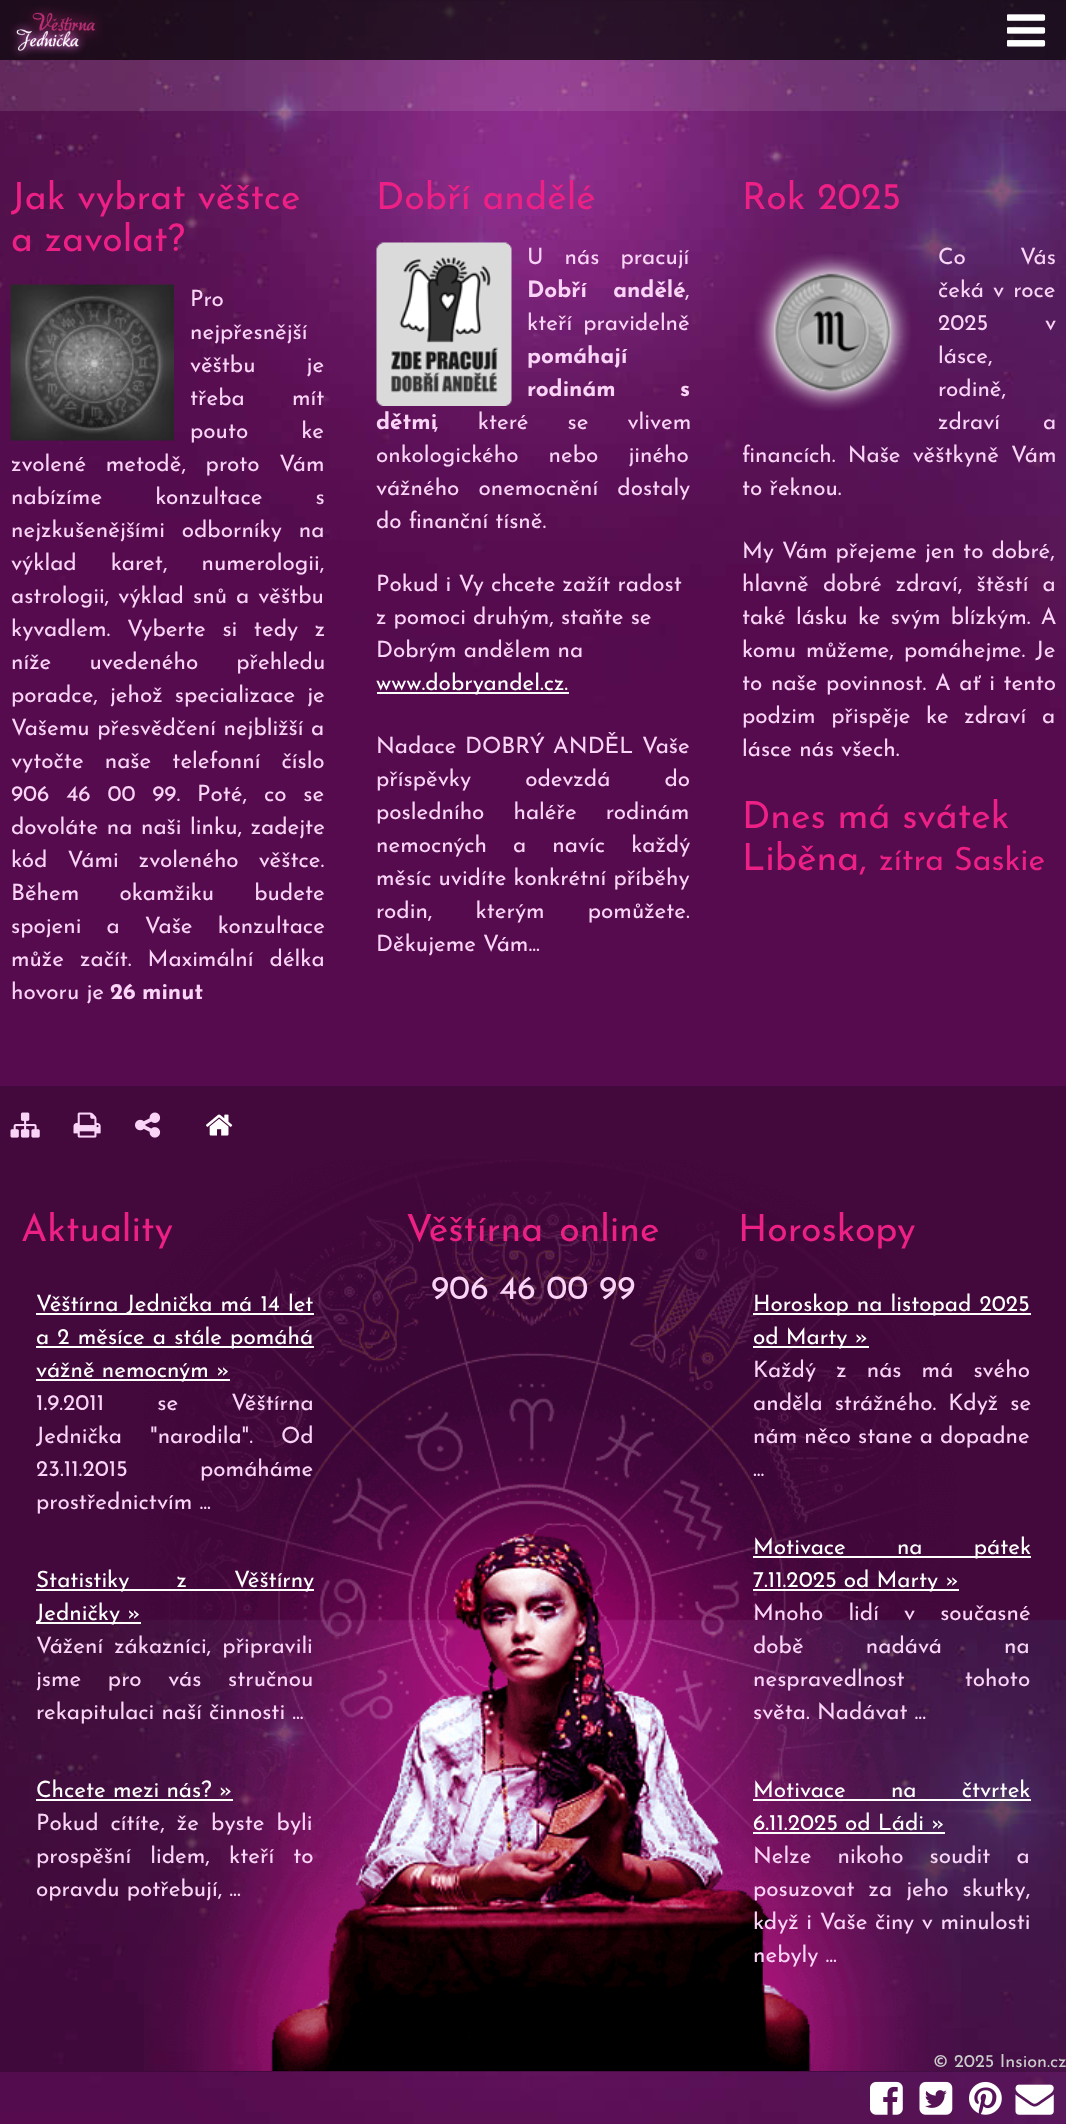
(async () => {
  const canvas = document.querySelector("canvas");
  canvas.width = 1066;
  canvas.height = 2124;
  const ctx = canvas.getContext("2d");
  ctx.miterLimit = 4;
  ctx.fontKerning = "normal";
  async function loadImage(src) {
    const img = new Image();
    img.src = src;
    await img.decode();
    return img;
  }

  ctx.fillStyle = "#ffffff";
  ctx.fillRect(0, 0, 1066, 2124);
  ctx.drawImage(await loadImage("img/1.png"), 0, 0, 1066, 2124);
  ctx.fillStyle = "rgba(255, 255, 255, 0.1)";
  ctx.fillRect(0, 0, 1066, 111);
  ctx.fillStyle = "rgba(0, 0, 0, 0.7)";
  ctx.fillRect(0, 0, 1066, 60);
  ctx.drawImage(await loadImage("img/2.png"), 10, 6, 93, 52);
  ctx.drawImage(await loadImage("img/3.png"), 1007, 14, 39, 33);
  ctx.drawImage(await loadImage("img/4.png"), 10, 284, 164, 157);
  ctx.drawImage(await loadImage("img/5.png"), 376, 242, 136, 164);
  ctx.fillStyle = "#ffffff";
  ctx.fillRect(377, 692, 192, 2);
  ctx.drawImage(await loadImage("img/6.png"), 754, 254, 157, 157);
  ctx.fillStyle = "rgba(0, 0, 0, 0.22)";
  ctx.fillRect(0, 1086, 1066, 986);
  ctx.drawImage(await loadImage("img/7.png"), 144, 1159, 817, 912);
  ctx.drawImage(await loadImage("img/8.png"), 10, 1112, 30, 26);
  ctx.drawImage(await loadImage("img/9.png"), 73, 1112, 28, 26);
  ctx.drawImage(await loadImage("img/10.png"), 135, 1112, 26, 26);
  ctx.drawImage(await loadImage("img/11.png"), 206, 1114, 27, 22);
  for (const [x, y, w, h, color] of [
    [36, 1313, 278, 2, "#ffffff"],
    [36, 1346, 278, 2, "#ffffff"],
    [36, 1379, 194, 2, "#ffffff"],
    [36, 1589, 278, 2, "#ffffff"],
    [36, 1622, 105, 2, "#ffffff"],
    [36, 1799, 197, 2, "#ffffff"],
    [753, 1313, 278, 2, "#ffffff"],
    [753, 1346, 116, 2, "#ffffff"],
    [753, 1556, 278, 2, "#ffffff"],
    [753, 1589, 206, 2, "#ffffff"],
    [753, 1799, 278, 2, "#ffffff"],
    [753, 1832, 192, 2, "#ffffff"],
  ]) {
    ctx.fillStyle = color;
    ctx.fillRect(x, y, w, h);
  }
  ctx.drawImage(await loadImage("img/12.png"), 870, 2081, 33, 34);
  ctx.drawImage(await loadImage("img/13.png"), 919, 2081, 34, 34);
  ctx.drawImage(await loadImage("img/14.png"), 969, 2081, 33, 34);
  ctx.drawImage(await loadImage("img/15.png"), 1015, 2084, 39, 31);
  ctx.font = "37.5px Josefin Sans";
  ctx.fillStyle = "#ed2085";
  ctx.fillText("Jak vybrat věštce", 11, 209);
  ctx.fillText("a zavolat?", 11, 251);
  ctx.font = "22.5px Josefin Sans";
  ctx.fillStyle = "#fad4f6";
  ctx.fillText("Pro", 190, 306);
  ctx.fillText("nejpřesnější", 190, 339);
  ctx.wordSpacing = "44px";
  ctx.fillText("věštbu je", 190, 372);
  ctx.wordSpacing = "40px";
  ctx.fillText("třeba mít", 190, 405);
  ctx.wordSpacing = "46px";
  ctx.fillText("pouto ke", 190, 438);
  ctx.wordSpacing = "12.5px";
  ctx.fillText("zvolené metodě, proto Vám", 11, 471);
  ctx.wordSpacing = "46px";
  ctx.fillText("nabízíme konzultace s", 11, 504);
  ctx.wordSpacing = "9.75px";
  ctx.fillText("nejzkušenějšími odborníky na", 11, 537);
  ctx.wordSpacing = "27px";
  ctx.fillText("výklad karet, numerologii,", 11, 570);
  ctx.wordSpacing = "2px";
  ctx.fillText("astrologii, výklad snů a věštbu", 11, 603);
  ctx.wordSpacing = "9.5px";
  ctx.fillText("kyvadlem. Vyberte si tedy z", 11, 636);
  ctx.wordSpacing = "31px";
  ctx.fillText("níže uvedeného přehledu", 11, 669);
  ctx.wordSpacing = "5px";
  ctx.fillText("poradce, jehož specializace je", 11, 702);
  ctx.wordSpacing = "0.5px";
  ctx.fillText("Vašemu přesvědčení nejbližší a", 11, 735);
  ctx.wordSpacing = "14px";
  ctx.fillText("vytočte naše telefonní číslo", 11, 768);
  ctx.wordSpacing = "9.75px";
  ctx.fillText("906 46 00 99. Poté, co se", 11, 801);
  ctx.wordSpacing = "1.5px";
  ctx.fillText("dovoláte na naši linku, zadejte", 11, 834);
  ctx.wordSpacing = "13px";
  ctx.fillText("kód Vámi zvoleného věštce.", 11, 867);
  ctx.wordSpacing = "33px";
  ctx.fillText("Během okamžiku budete", 11, 900);
  ctx.wordSpacing = "18px";
  ctx.fillText("spojeni a Vaše konzultace", 11, 933);
  ctx.wordSpacing = "9px";
  ctx.fillText("může začít. Maximální délka", 11, 966);
  ctx.wordSpacing = "0px";
  ctx.fillText("hovoru je", 11, 999);
  ctx.wordSpacing = "-1px";
  ctx.font = "bold 22.5px Josefin Sans";
  ctx.fillText("26 minut", 110, 999);
  ctx.wordSpacing = "0px";
  ctx.font = "22.5px Josefin Sans";
  ctx.fillText(".", 199, 999);
  ctx.font = "37.5px Josefin Sans";
  ctx.fillStyle = "#ed2085";
  ctx.fillText("Dobří andělé", 376, 209);
  ctx.wordSpacing = "14px";
  ctx.font = "22.5px Josefin Sans";
  ctx.fillStyle = "#fad4f6";
  ctx.fillText("U nás pracují", 527, 264);
  ctx.wordSpacing = "19px";
  ctx.font = "bold 22.5px Josefin Sans";
  ctx.fillText("Dobří andělé", 527, 297);
  ctx.wordSpacing = "0px";
  ctx.font = "22.5px Josefin Sans";
  ctx.fillText(",", 685, 297);
  ctx.wordSpacing = "4px";
  ctx.fillText("kteří pravidelně", 527, 330);
  ctx.wordSpacing = "0px";
  ctx.font = "bold 22.5px Josefin Sans";
  ctx.fillText("pomáhají", 527, 363);
  ctx.wordSpacing = "57px";
  ctx.fillText("rodinám s", 527, 396);
  ctx.wordSpacing = "0px";
  ctx.fillText("dětmi", 376, 429);
  ctx.wordSpacing = "32px";
  ctx.font = "22.5px Josefin Sans";
  ctx.fillText(", které se vlivem", 434, 429);
  ctx.wordSpacing = "23px";
  ctx.fillText("onkologického nebo jiného", 376, 462);
  ctx.wordSpacing = "12px";
  ctx.fillText("vážného onemocnění dostaly", 376, 495);
  ctx.wordSpacing = "0px";
  for (const [text, x, y] of [
    ["do finanční tísně.", 376, 528],
    ["Pokud i Vy chcete zažít radost", 376, 591],
    ["z pomoci druhým, staňte se", 376, 624],
    ["Dobrým andělem na", 376, 657],
  ]) {
    ctx.fillText(text, x, y);
  }
  ctx.fillStyle = "#ffffff";
  ctx.fillText("www.dobryandel.cz.", 376, 690);
  ctx.fillStyle = "#fad4f6";
  ctx.fillText("Nadace", 376, 753);
  ctx.wordSpacing = "1px";
  ctx.fillText("DOBRÝ ANDĚL", 465, 753);
  ctx.wordSpacing = "0px";
  ctx.fillText("Vaše", 642, 753);
  ctx.wordSpacing = "47px";
  ctx.fillText("příspěvky odevzdá do", 376, 786);
  ctx.wordSpacing = "22px";
  ctx.fillText("posledního haléře rodinám", 376, 819);
  ctx.wordSpacing = "19px";
  ctx.fillText("nemocných a navíc každý", 376, 852);
  ctx.wordSpacing = "0px";
  ctx.fillText("měsíc uvidíte konkrétní příběhy", 376, 885);
  ctx.wordSpacing = "36px";
  ctx.fillText("rodin, kterým pomůžete.", 376, 918);
  ctx.wordSpacing = "0px";
  ctx.fillText("Děkujeme Vám...", 376, 951);
  ctx.font = "37.5px Josefin Sans";
  ctx.fillStyle = "#ed2085";
  ctx.fillText("Rok 2025", 742, 209);
  ctx.wordSpacing = "47px";
  ctx.font = "22.5px Josefin Sans";
  ctx.fillStyle = "#fad4f6";
  ctx.fillText("Co Vás", 938, 264);
  ctx.wordSpacing = "0px";
  ctx.fillText("čeká", 938, 297);
  ctx.wordSpacing = "2px";
  ctx.fillText("v roce", 993, 297);
  ctx.wordSpacing = "0px";
  for (const [text, x, y] of [
    ["2025", 938, 330],
    ["v", 1045, 330],
    ["lásce,", 938, 363],
    ["rodině,", 938, 396],
  ]) {
    ctx.fillText(text, x, y);
  }
  ctx.wordSpacing = "36px";
  ctx.fillText("zdraví a", 938, 429);
  ctx.wordSpacing = "5px";
  ctx.fillText("financích. Naše věštkyně Vám", 742, 462);
  ctx.wordSpacing = "0px";
  ctx.fillText("to řeknou.", 742, 495);
  ctx.wordSpacing = "1px";
  ctx.fillText("My Vám přejeme jen to dobré,", 742, 558);
  ctx.wordSpacing = "0px";
  ctx.fillText("hlavně", 742, 591);
  ctx.wordSpacing = "7px";
  ctx.fillText("dobré zdraví, štěstí a", 823, 591);
  ctx.wordSpacing = "3px";
  for (const [text, x, y] of [
    ["také lásku", 742, 624],
    ["ke svým blízkým. A", 858, 624],
    ["komu můžeme, pomáhejme. Je", 742, 657],
  ]) {
    ctx.fillText(text, x, y);
  }
  ctx.wordSpacing = "1.5px";
  ctx.fillText("to naše povinnost. A ať i tento", 742, 690);
  ctx.wordSpacing = "8.5px";
  ctx.fillText("podzim přispěje ke zdraví a", 742, 723);
  ctx.wordSpacing = "0px";
  ctx.fillText("lásce nás všech.", 742, 756);
  ctx.font = "37.5px Josefin Sans";
  ctx.fillStyle = "#ed2085";
  ctx.fillText("Dnes má svátek", 742, 828);
  ctx.fillText("Liběna,", 742, 870);
  ctx.font = "32px Josefin Sans";
  ctx.fillText("zítra Saskie", 879, 870);
  ctx.font = "37.5px Josefin Sans";
  ctx.fillText("Aktuality", 21, 1241);
  ctx.wordSpacing = "1px";
  ctx.font = "22.5px Josefin Sans";
  ctx.fillStyle = "#ffffff";
  ctx.fillText("Věštírna Jednička má 14 let", 36, 1311);
  ctx.fillText("a 2 měsíce a stále pomáhá", 36, 1344);
  ctx.wordSpacing = "0px";
  ctx.fillText("vážně nemocným »", 36, 1377);
  ctx.wordSpacing = "46px";
  ctx.fillStyle = "#fad4f6";
  ctx.fillText("1.9.2011 se Věštírna", 36, 1410);
  ctx.wordSpacing = "21px";
  ctx.fillText("Jednička \"narodila\". Od", 36, 1443);
  ctx.wordSpacing = "0px";
  ctx.fillText("23.11.2015", 36, 1476);
  ctx.fillText("pomáháme", 200, 1476);
  ctx.fillText("prostřednictvím ...", 36, 1509);
  ctx.wordSpacing = "40px";
  ctx.fillStyle = "#ffffff";
  ctx.fillText("Statistiky z Věštírny", 36, 1587);
  ctx.wordSpacing = "0px";
  ctx.fillText("Jedničky »", 36, 1620);
  ctx.wordSpacing = "4px";
  ctx.fillStyle = "#fad4f6";
  ctx.fillText("Vážení zákazníci, připravili", 36, 1653);
  ctx.wordSpacing = "19.5px";
  ctx.fillText("jsme pro vás stručnou", 36, 1686);
  ctx.wordSpacing = "0px";
  ctx.fillText("rekapitulaci naší činnosti ...", 36, 1719);
  ctx.fillStyle = "#ffffff";
  ctx.fillText("Chcete mezi nás? »", 36, 1797);
  ctx.wordSpacing = "5px";
  ctx.fillStyle = "#fad4f6";
  ctx.fillText("Pokud cítíte, že byste byli", 36, 1830);
  ctx.wordSpacing = "12px";
  ctx.fillText("prospěšní lidem, kteří to", 36, 1863);
  ctx.wordSpacing = "0px";
  ctx.fillText("opravdu potřebují, ...", 36, 1896);
  ctx.wordSpacing = "4px";
  ctx.font = "37.5px Josefin Sans";
  ctx.fillStyle = "#ed2085";
  ctx.fillText("Věštírna online", 406, 1241);
  ctx.wordSpacing = "0px";
  ctx.font = "33.75px Josefin Sans";
  ctx.fillStyle = "#fad4f6";
  ctx.fillText("906 46 00 99", 431, 1299);
  ctx.font = "37.5px Josefin Sans";
  ctx.fillStyle = "#ed2085";
  ctx.fillText("Horoskopy", 738, 1241);
  ctx.wordSpacing = "1px";
  ctx.font = "22.5px Josefin Sans";
  ctx.fillStyle = "#ffffff";
  ctx.fillText("Horoskop na listopad 2025", 753, 1311);
  ctx.wordSpacing = "0px";
  ctx.fillText("od Marty »", 753, 1344);
  ctx.wordSpacing = "13px";
  ctx.fillStyle = "#fad4f6";
  ctx.fillText("Každý z nás má svého", 753, 1377);
  ctx.wordSpacing = "5px";
  ctx.fillText("anděla strážného. Když se", 753, 1410);
  ctx.wordSpacing = "0px";
  ctx.fillText("nám něco stane a dopadne", 753, 1443);
  ctx.fillText("...", 753, 1476);
  ctx.wordSpacing = "44px";
  ctx.fillStyle = "#ffffff";
  ctx.fillText("Motivace na pátek", 753, 1554);
  ctx.wordSpacing = "0px";
  ctx.fillText("7.11.2025 od Marty »", 753, 1587);
  ctx.wordSpacing = "18px";
  ctx.fillStyle = "#fad4f6";
  ctx.fillText("Mnoho lidí v současné", 753, 1620);
  ctx.wordSpacing = "55px";
  ctx.fillText("době nadává na", 753, 1653);
  ctx.wordSpacing = "53px";
  ctx.fillText("nespravedlnost tohoto", 753, 1686);
  ctx.wordSpacing = "0px";
  ctx.fillText("světa. Nadávat ...", 753, 1719);
  ctx.wordSpacing = "38px";
  ctx.fillStyle = "#ffffff";
  ctx.fillText("Motivace na čtvrtek", 753, 1797);
  ctx.wordSpacing = "0px";
  ctx.fillText("6.11.2025 od Ládi »", 753, 1830);
  ctx.wordSpacing = "19px";
  ctx.fillStyle = "#fad4f6";
  ctx.fillText("Nelze nikoho soudit a", 753, 1863);
  ctx.wordSpacing = "7px";
  ctx.fillText("posuzovat za jeho skutky,", 753, 1896);
  ctx.wordSpacing = "0.5px";
  ctx.fillText("když i Vaše činy v minulosti", 753, 1929);
  ctx.wordSpacing = "0px";
  ctx.fillText("nebyly ...", 753, 1962);
  ctx.font = "18px Josefin Sans";
  ctx.fillStyle = "#cccccc";
  ctx.fillText("© 2025 Insion.cz", 933, 2067);
})();
